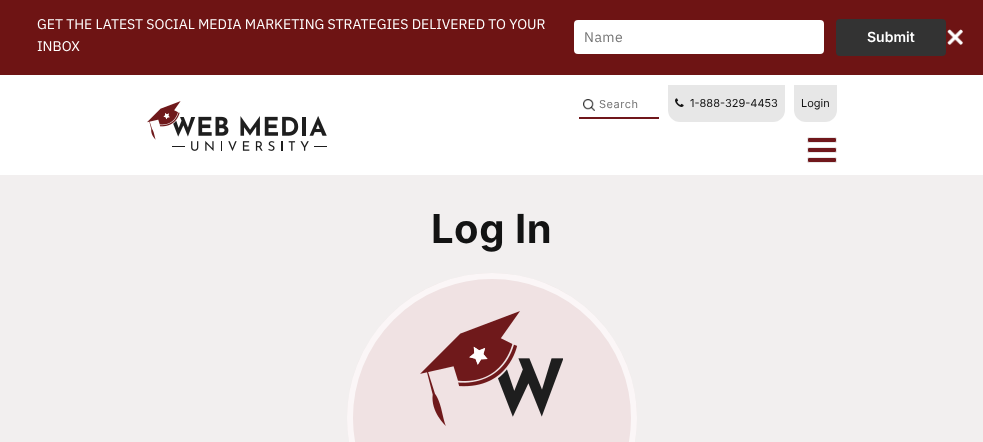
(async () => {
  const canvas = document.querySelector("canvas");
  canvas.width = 983;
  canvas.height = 442;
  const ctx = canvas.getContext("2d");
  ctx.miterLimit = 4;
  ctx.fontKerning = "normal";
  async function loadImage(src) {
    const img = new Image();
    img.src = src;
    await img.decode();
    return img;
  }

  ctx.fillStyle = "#ffffff";
  ctx.fillRect(0, 0, 983, 442);
  ctx.fillStyle = "#6e1414";
  ctx.fillRect(0, 0, 983, 75);
  ctx.fillStyle = "#ffffff";
  ctx.beginPath();
  ctx.roundRect(574, 20, 250, 34, 4);
  ctx.fill();
  ctx.fillStyle = "#333333";
  ctx.beginPath();
  ctx.roundRect(836, 19, 110, 37, 4);
  ctx.fill();
  ctx.drawImage(await loadImage("img/1.png"), 947, 29, 16, 16);
  ctx.drawImage(await loadImage("img/2.png"), 147, 101, 180, 50);
  ctx.fillStyle = "#70171b";
  ctx.fillRect(579, 117, 80, 2);
  ctx.drawImage(await loadImage("img/3.png"), 583, 99, 12, 12);
  ctx.fillStyle = "#e7e7e7";
  ctx.beginPath();
  ctx.roundRect(668, 85, 117, 37, [0, 0, 12, 12]);
  ctx.fill();
  ctx.drawImage(await loadImage("img/4.png"), 675, 98, 9, 9);
  ctx.beginPath();
  ctx.roundRect(794, 85, 43, 37, [0, 0, 12, 12]);
  ctx.fill();
  ctx.fillStyle = "#70171b";
  ctx.beginPath();
  ctx.roundRect(807.5, 137.5, 29, 5, 1.5);
  ctx.fill();
  ctx.strokeStyle = "#e8e8e8";
  ctx.stroke();
  ctx.beginPath();
  ctx.roundRect(807.5, 147.5, 29, 5, 1.5);
  ctx.fill();
  ctx.stroke();
  ctx.beginPath();
  ctx.roundRect(807.5, 157.5, 29, 5, 1.5);
  ctx.fill();
  ctx.stroke();
  ctx.fillStyle = "#f2efef";
  ctx.fillRect(0, 175, 983, 267);
  ctx.fillStyle = "#f0e2e3";
  ctx.beginPath();
  ctx.arc(492, 418, 145, 0, Math.PI * 2);
  ctx.fill();
  ctx.beginPath();
  ctx.arc(492, 418, 142, 0, Math.PI * 2);
  ctx.strokeStyle = "rgba(255, 255, 255, 0.7)";
  ctx.lineWidth = 6;
  ctx.stroke();
  ctx.drawImage(await loadImage("img/5.png"), 420, 311, 143, 115);
  ctx.font = "14px IBM Plex Sans";
  ctx.fillStyle = "#ffffff";
  ctx.fillText("GET THE LATEST SOCIAL MEDIA MARKETING STRATEGIES DELIVERED TO YOUR", 37, 29);
  ctx.fillText("INBOX", 37, 51);
  ctx.letterSpacing = "0.5px";
  ctx.fillStyle = "#757575";
  ctx.fillText("Name", 584, 42);
  ctx.letterSpacing = "0px";
  ctx.font = "600 14px Inter";
  ctx.fillStyle = "#ffffff";
  ctx.fillText("Submit", 867, 42);
  ctx.letterSpacing = "0.5px";
  ctx.font = "11px Inter";
  ctx.fillStyle = "#757575";
  ctx.fillText("Search", 599, 108);
  ctx.letterSpacing = "0px";
  ctx.fillStyle = "#131313";
  ctx.fillText("1-888-329-4453", 690, 107);
  ctx.fillText("Login", 801, 107);
  ctx.letterSpacing = "0.5px";
  ctx.font = "bold 40px Inter";
  ctx.fillText("Log In", 431, 243);
})();
